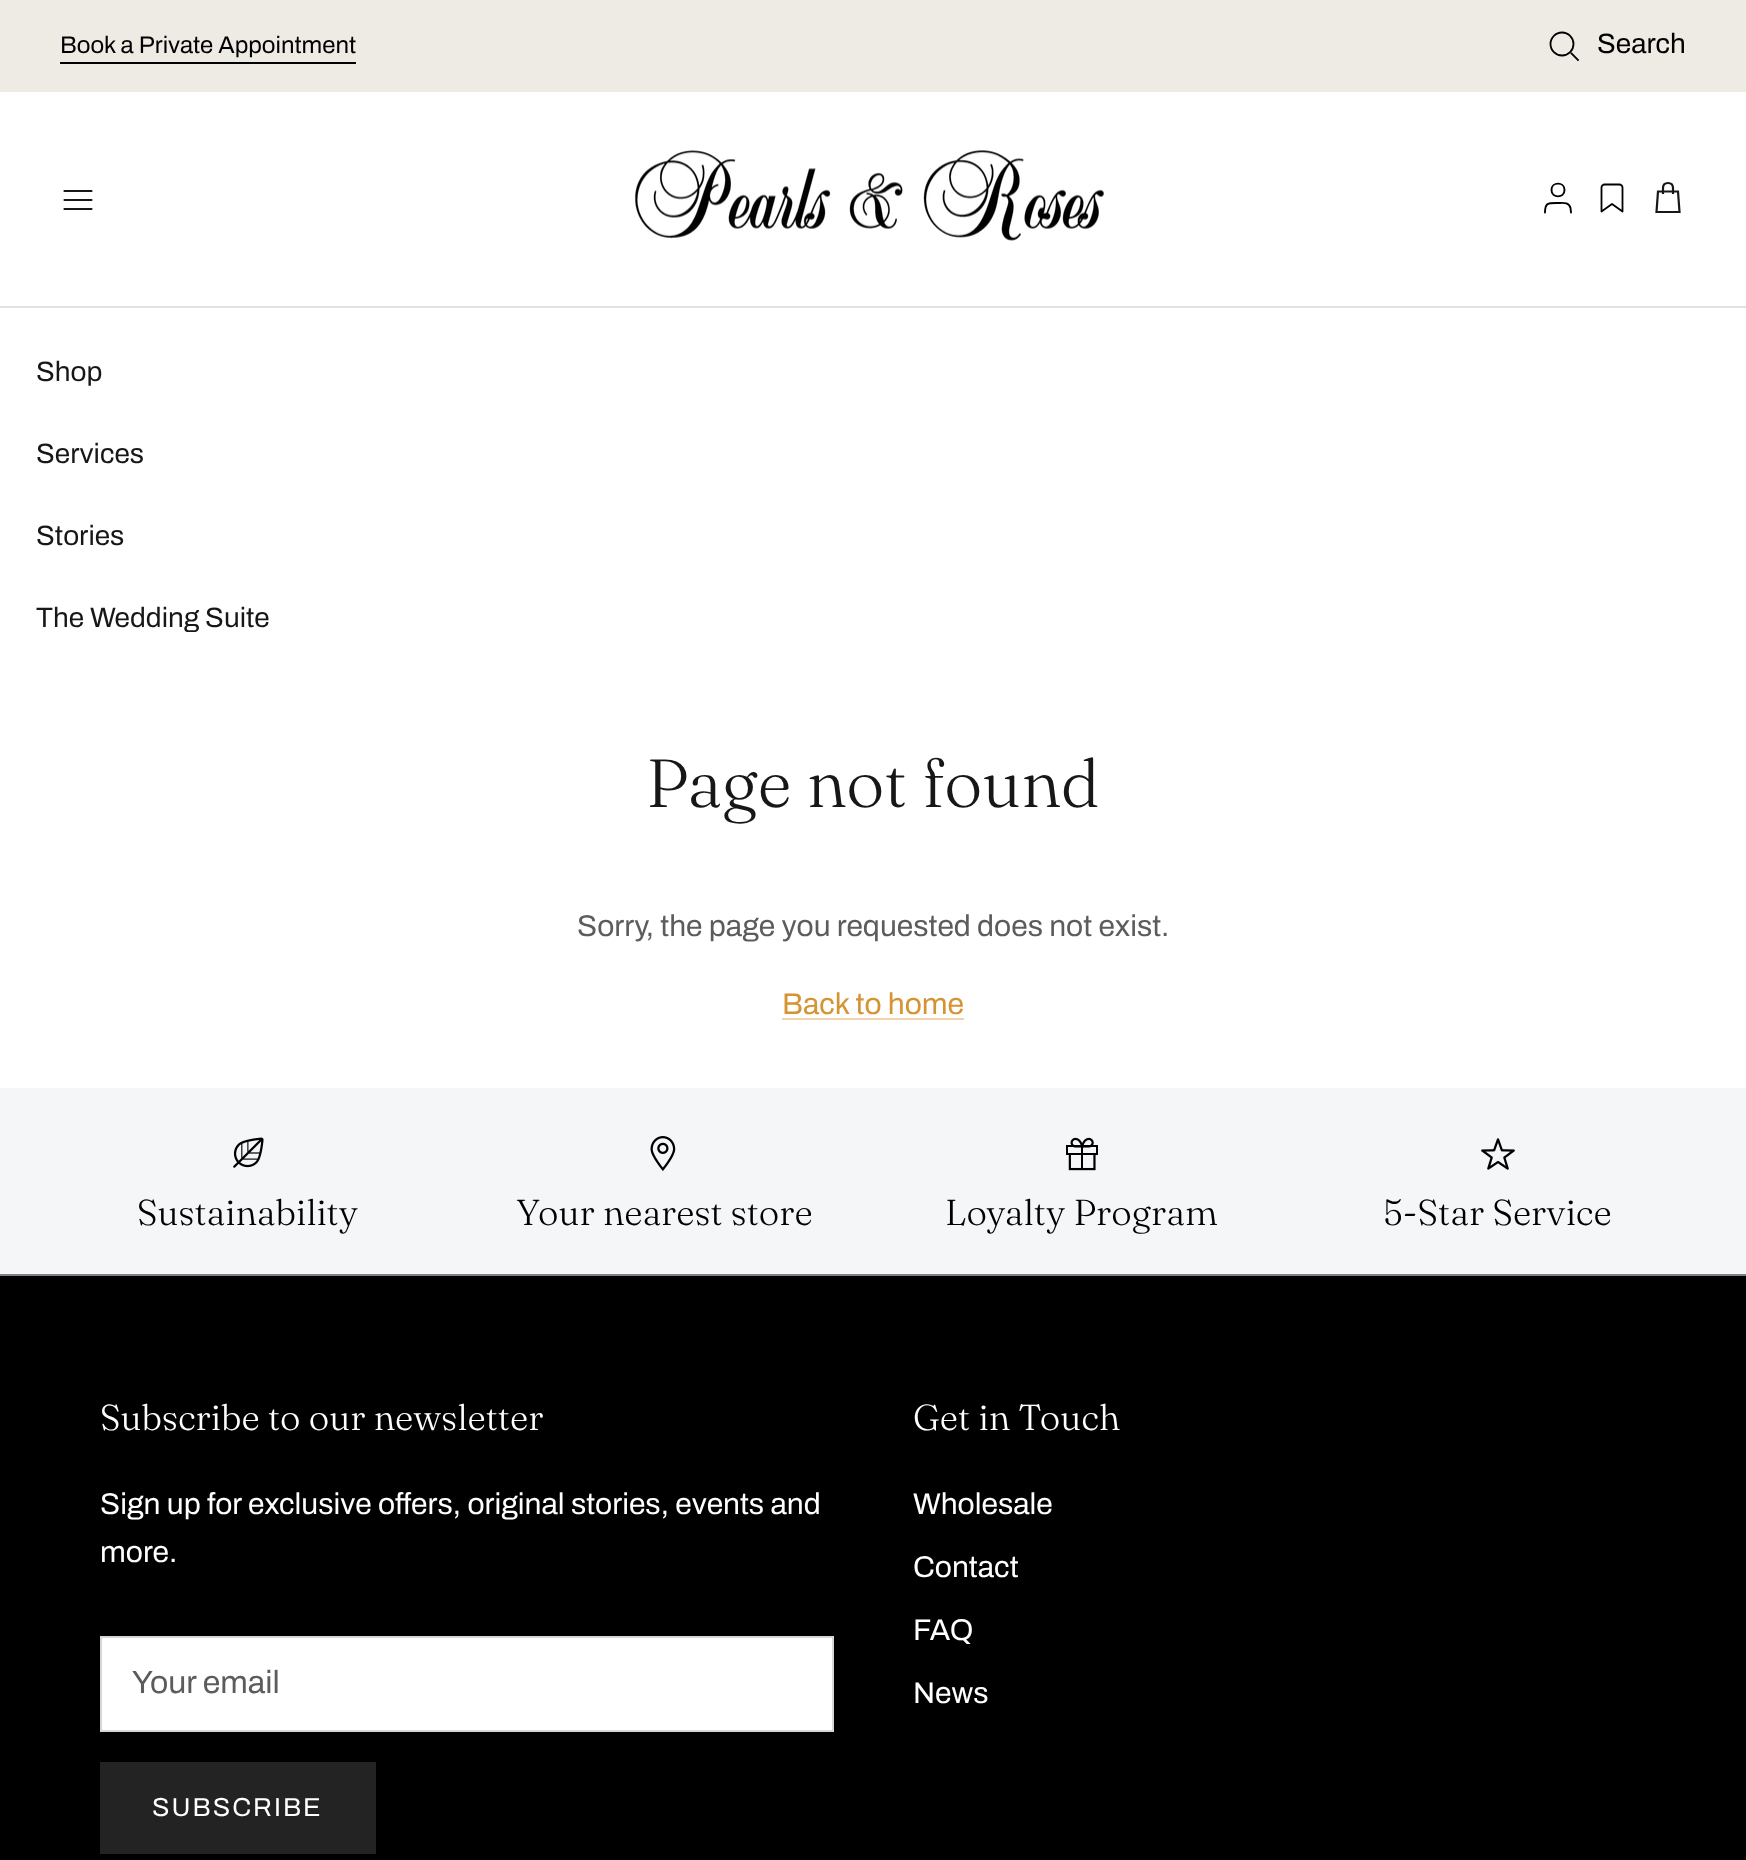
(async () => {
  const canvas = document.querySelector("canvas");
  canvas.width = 1746;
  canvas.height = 1860;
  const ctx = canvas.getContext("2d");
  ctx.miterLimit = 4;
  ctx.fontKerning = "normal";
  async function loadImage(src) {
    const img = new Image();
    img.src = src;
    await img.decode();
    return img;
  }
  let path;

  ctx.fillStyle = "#ffffff";
  ctx.fillRect(0, 0, 1746, 1860);
  ctx.fillStyle = "#eeeae4";
  ctx.fillRect(0, 0, 1746, 92);
  ctx.fillStyle = "#000000";
  ctx.fillRect(60, 62, 296, 2);
  ctx.beginPath();
  ctx.arc(1562, 44, 11.5, 0, Math.PI * 2);
  ctx.strokeStyle = "#000000";
  ctx.lineWidth = 1.8;
  ctx.stroke();
  path = new Path2D("M1571.5 53.5L1578 60");
  ctx.lineCap = "square";
  ctx.stroke(path);
  ctx.fillStyle = "#dfe3e8";
  ctx.fillRect(0, 306, 1746, 2);
  path = new Path2D("M64.5 200H91.5M64.5 191H91.5M64.5 209H91.5");
  ctx.strokeStyle = "#171717";
  ctx.lineWidth = 2.2;
  ctx.lineCap = "round";
  ctx.lineJoin = "round";
  ctx.stroke(path);
  ctx.drawImage(await loadImage("img/1.png"), 635, 150, 469, 91);
  path = new Path2D("M1571 212.5L1570.5 208C1569 201.5 1562.5 203 1557.5 203C1548.5 203 1545 202.5 1545 212.5M1564.5 190C1564.5 198.5 1551.5 198.5 1551.5 190C1551.5 181.5 1564.5 181.5 1564.5 190Z");
  ctx.strokeStyle = "#000000";
  ctx.lineWidth = 1.9;
  ctx.lineJoin = "miter";
  ctx.stroke(path);
  path = new Path2D("M1622.5 211.5L1612 204L1601.5 211.5V187.5C1601.5 186 1603 184.5 1604.5 184.5H1619.5C1621 184.5 1622.5 186 1622.5 187.5Z");
  ctx.lineWidth = 1.8;
  ctx.lineJoin = "round";
  ctx.stroke(path);
  path = new Path2D("M1673 194V188C1673 185 1671 183 1668 183C1665 183 1663 185 1663 188V194M1658 191.5H1678L1679.5 212H1656.5Z");
  ctx.strokeStyle = "#171717";
  ctx.lineWidth = 2.2;
  ctx.lineCap = "butt";
  ctx.lineJoin = "miter";
  ctx.stroke(path);
  ctx.fillStyle = "#eed4ad";
  ctx.fillRect(782, 1018, 182, 2);
  ctx.fillStyle = "#f4f6f8";
  ctx.fillRect(0, 1088, 1746, 186);
  ctx.drawImage(await loadImage("img/2.png"), 233, 1137, 31, 31);
  ctx.drawImage(await loadImage("img/3.png"), 650, 1136, 26, 35);
  ctx.drawImage(await loadImage("img/4.png"), 1066, 1137, 32, 34);
  ctx.drawImage(await loadImage("img/5.png"), 1481, 1138, 34, 32);
  ctx.fillStyle = "#000000";
  ctx.fillRect(0, 1276, 1746, 584);
  ctx.fillStyle = "#808080";
  ctx.fillRect(0, 1274, 1746, 2);
  ctx.fillStyle = "#ffffff";
  ctx.beginPath();
  ctx.rect(101, 1637, 732, 94);
  ctx.fill();
  ctx.strokeStyle = "#d6d6d6";
  ctx.lineWidth = 2;
  ctx.stroke();
  ctx.fillStyle = "#232323";
  ctx.fillRect(100, 1762, 276, 92);
  ctx.font = "24px Archivo";
  ctx.fillStyle = "#000000";
  ctx.fillText("Book a Private Appointment", 60, 53);
  ctx.font = "28px Archivo";
  ctx.fillText("Search", 1597, 53);
  ctx.fillStyle = "#171717";
  for (const [text, x, y] of [
    ["Shop", 36, 381],
    ["Services", 36, 463],
    ["Stories", 36, 545],
    ["The Wedding Suite", 36, 627],
  ]) {
    ctx.fillText(text, x, y);
  }
  ctx.font = "300 68px Fraunces";
  ctx.fillText("Page not found", 646, 807);
  ctx.font = "30px Archivo";
  ctx.fillStyle = "#5c5c5c";
  ctx.fillText("Sorry, the page you requested does not exist.", 577, 936);
  ctx.fillStyle = "#d59332";
  ctx.fillText("Back to home", 782, 1014);
  ctx.font = "300 36px 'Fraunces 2'";
  ctx.fillStyle = "#000000";
  for (const [text, x, y] of [
    ["Sustainability", 137, 1225],
    ["Your nearest store", 516, 1225],
    ["Loyalty Program", 945, 1225],
    ["5-Star Service", 1383, 1225],
  ]) {
    ctx.fillText(text, x, y);
  }
  ctx.fillStyle = "#ffffff";
  ctx.fillText("Subscribe to our newsletter", 100, 1430);
  ctx.font = "30px Archivo";
  ctx.fillText("Sign up for exclusive offers, original stories, events and", 100, 1514);
  ctx.fillText("more.", 100, 1562);
  ctx.font = "32px Archivo";
  ctx.fillStyle = "#5c5c5c";
  ctx.fillText("Your email", 132, 1693);
  ctx.letterSpacing = "2px";
  ctx.font = "26px Archivo";
  ctx.fillStyle = "#ffffff";
  ctx.fillText("SUBSCRIBE", 152, 1816);
  ctx.letterSpacing = "0px";
  ctx.font = "300 36px 'Fraunces 2'";
  ctx.fillText("Get in Touch", 913, 1430);
  ctx.font = "30px Archivo";
  for (const [text, x, y] of [
    ["Wholesale", 913, 1514],
    ["Contact", 913, 1577],
    ["FAQ", 913, 1640],
    ["News", 913, 1703],
  ]) {
    ctx.fillText(text, x, y);
  }
})();
